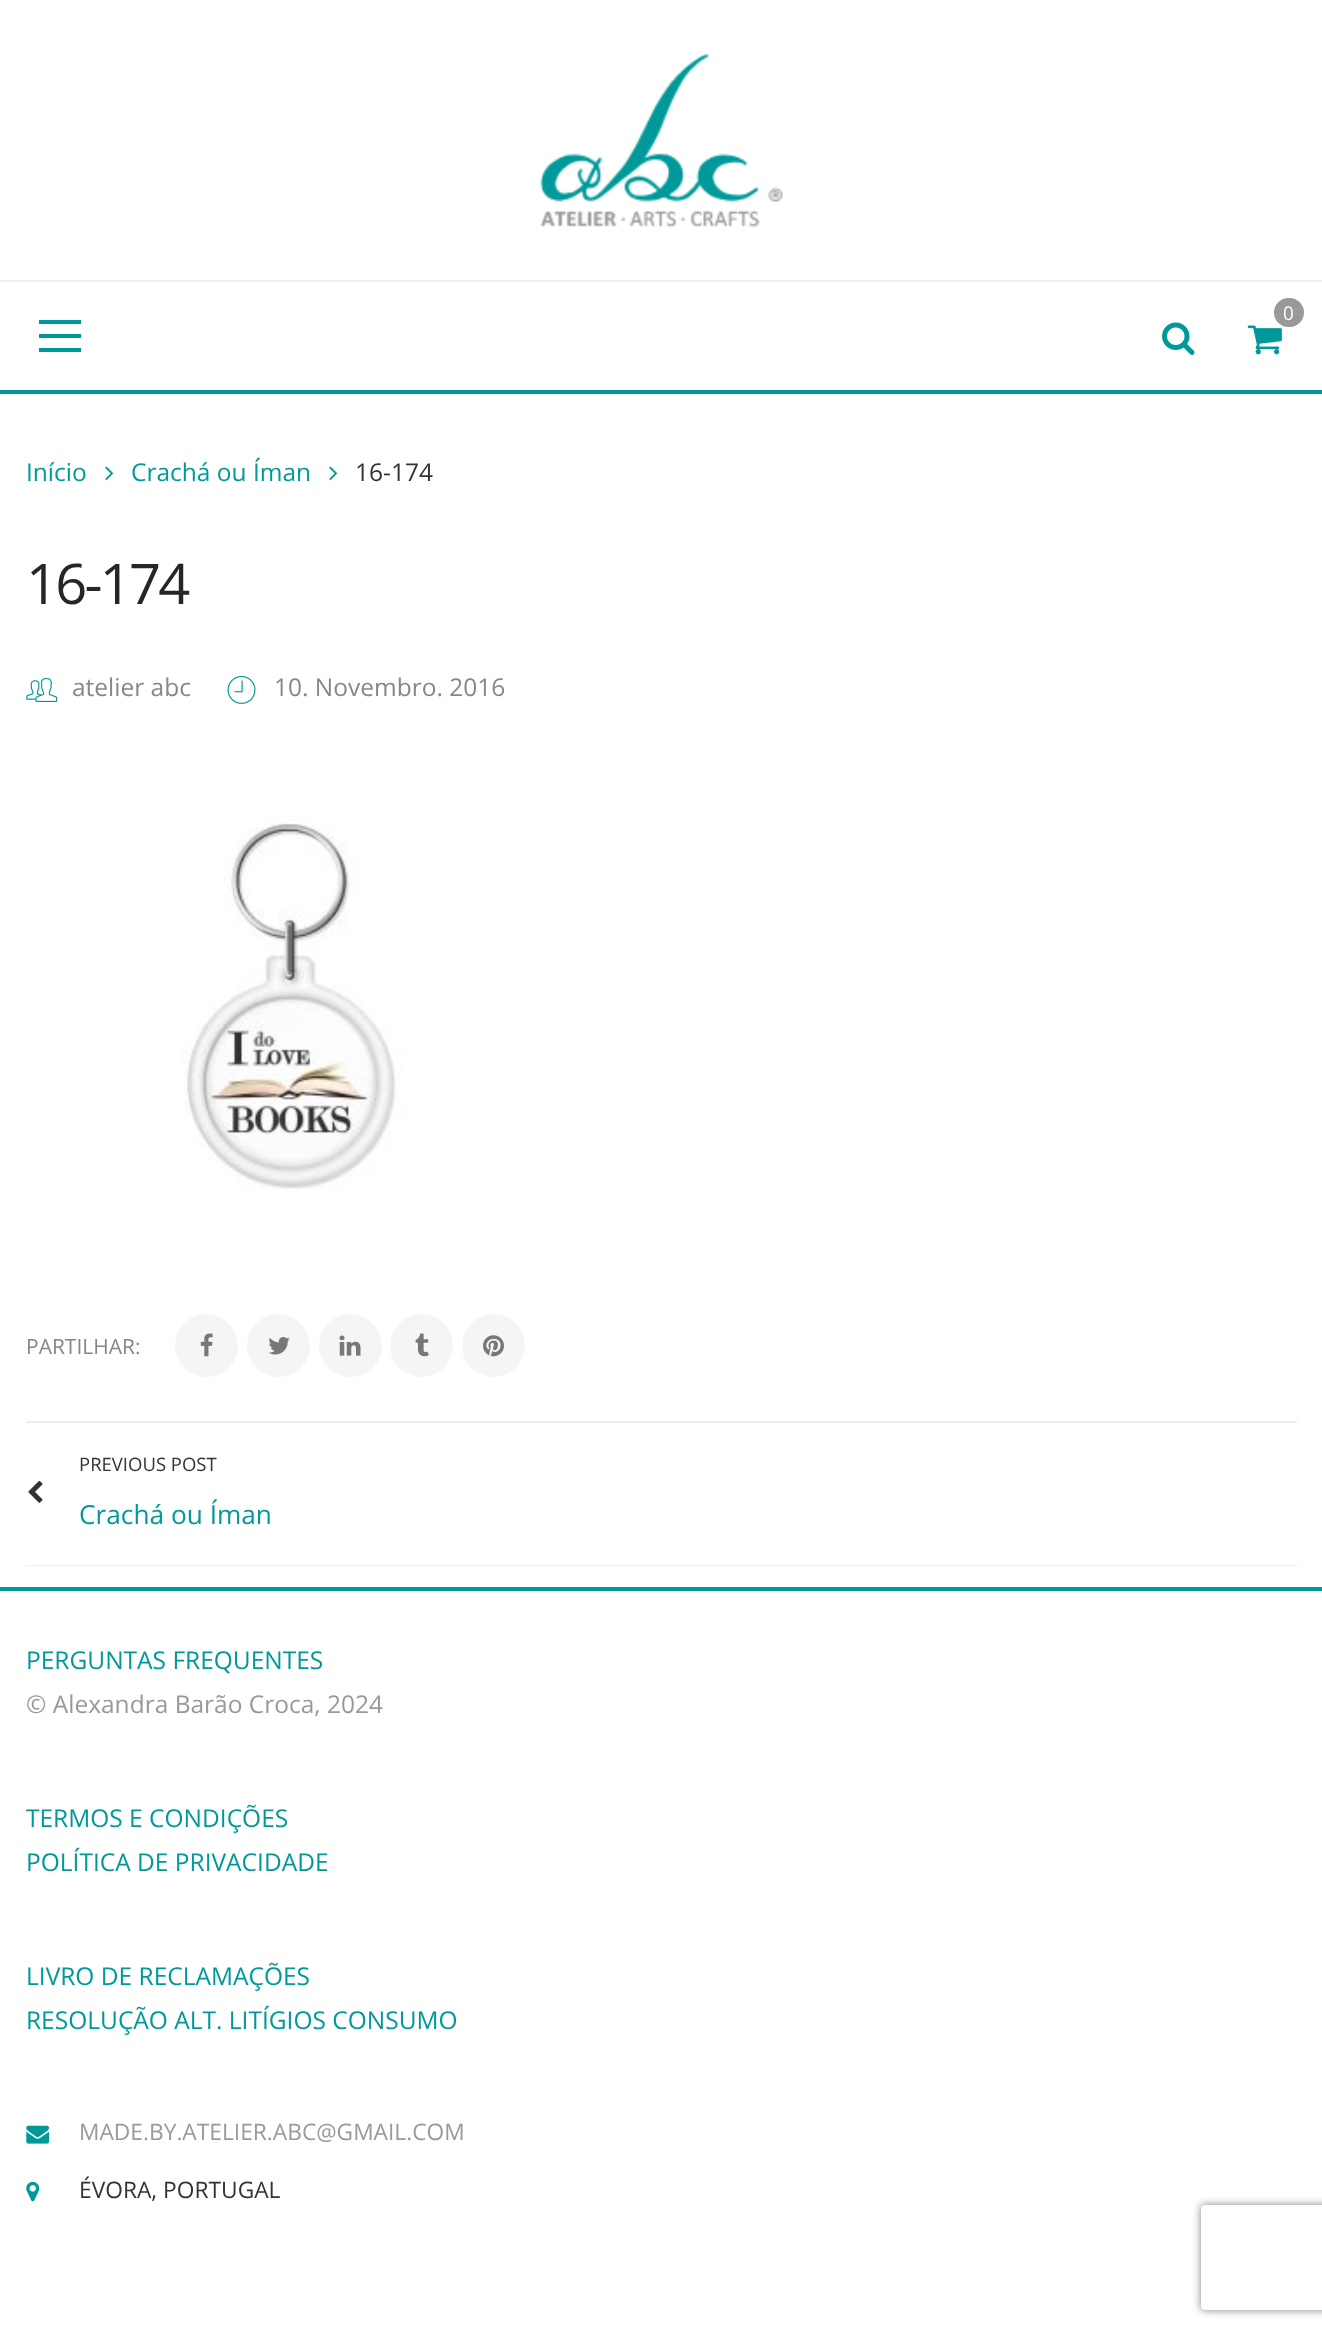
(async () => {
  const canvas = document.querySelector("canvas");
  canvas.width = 1322;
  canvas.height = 2333;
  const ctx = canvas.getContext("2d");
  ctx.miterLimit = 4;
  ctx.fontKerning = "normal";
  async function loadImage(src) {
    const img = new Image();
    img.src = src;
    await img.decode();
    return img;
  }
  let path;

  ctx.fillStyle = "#ffffff";
  ctx.fillRect(0, 0, 1322, 2333);
  ctx.drawImage(await loadImage("img/1.png"), 540, 53, 243, 175);
  ctx.fillStyle = "#eeeeee";
  ctx.fillRect(0, 280, 1322, 2);
  ctx.fillStyle = "#009999";
  ctx.fillRect(0, 390, 1322, 4);
  ctx.drawImage(await loadImage("img/2.png"), 1247, 325, 35, 30);
  ctx.fillStyle = "#999999";
  ctx.beginPath();
  ctx.roundRect(1274, 298, 30, 29, 14.5);
  ctx.fill();
  ctx.drawImage(await loadImage("img/3.png"), 1162, 322, 33, 33);
  for (const [x, y, w, h, color] of [
    [39, 320, 42, 4, "#009999"],
    [39, 334, 42, 4, "#009999"],
    [39, 348, 42, 4, "#009999"],
  ]) {
    ctx.fillStyle = color;
    ctx.fillRect(x, y, w, h);
  }
  ctx.drawImage(await loadImage("img/4.png"), 105, 466, 9, 15);
  ctx.drawImage(await loadImage("img/4.png"), 329, 466, 9, 15);
  ctx.fillStyle = "#eeeeee";
  ctx.fillRect(26, 1421, 1271, 2);
  ctx.drawImage(await loadImage("img/5.png"), 26, 677, 32, 25);
  ctx.drawImage(await loadImage("img/6.png"), 227, 675, 29, 29);
  ctx.drawImage(await loadImage("img/7.png"), 181, 816, 221, 373);
  ctx.fillStyle = "#f5f5f5";
  ctx.beginPath();
  ctx.arc(206.5, 1345.5, 31.5, 0, Math.PI * 2);
  ctx.fill();
  ctx.drawImage(await loadImage("img/8.png"), 200, 1333, 13, 24);
  ctx.beginPath();
  ctx.arc(278.5, 1345.5, 31.5, 0, Math.PI * 2);
  ctx.fill();
  ctx.drawImage(await loadImage("img/9.png"), 268, 1337, 22, 18);
  ctx.beginPath();
  ctx.arc(350.5, 1345.5, 31.5, 0, Math.PI * 2);
  ctx.fill();
  ctx.drawImage(await loadImage("img/10.png"), 339, 1335, 22, 21);
  ctx.beginPath();
  ctx.arc(421.5, 1345.5, 31.5, 0, Math.PI * 2);
  ctx.fill();
  ctx.drawImage(await loadImage("img/11.png"), 415, 1333, 14, 24);
  ctx.beginPath();
  ctx.arc(493.5, 1345.5, 31.5, 0, Math.PI * 2);
  ctx.fill();
  ctx.drawImage(await loadImage("img/12.png"), 483, 1335, 21, 22);
  ctx.fillStyle = "#eeeeee";
  ctx.fillRect(26, 1565, 1271, 1);
  ctx.drawImage(await loadImage("img/13.png"), 28, 1480, 15, 23);
  ctx.fillStyle = "#009999";
  ctx.fillRect(0, 1587, 1322, 4);
  ctx.drawImage(await loadImage("img/14.png"), 26, 2125, 23, 19);
  ctx.drawImage(await loadImage("img/15.png"), 26, 2181, 14, 21);
  ctx.save();
  path = new Path2D("M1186 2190H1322V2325H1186ZM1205 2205H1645C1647 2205 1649 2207 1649 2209V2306C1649 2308 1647 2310 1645 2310H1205C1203 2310 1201 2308 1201 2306V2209C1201 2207 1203 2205 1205 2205Z");
  ctx.clip(path, "evenodd");
  ctx.fillStyle = "#808080";
  ctx.filter = "blur(4.5px)";
  ctx.beginPath();
  ctx.roundRect(1201, 2205, 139, 105, 4);
  ctx.fill();
  ctx.filter = "none";
  ctx.restore();
  ctx.font = "19px Open Sans";
  ctx.fillStyle = "#ffffff";
  ctx.fillText("0", 1283, 320);
  ctx.font = "24.5px Open Sans";
  ctx.fillStyle = "#009999";
  ctx.fillText("Início", 26, 481);
  ctx.fillText("Crachá ou Íman", 131, 481);
  ctx.fillStyle = "#333333";
  ctx.fillText("16-174", 355, 481);
  ctx.letterSpacing = "-2.75px";
  ctx.font = "56px Open Sans";
  ctx.fillStyle = "#25262c";
  ctx.fillText("16-174", 26, 604);
  ctx.letterSpacing = "0px";
  ctx.font = "24.5px Open Sans";
  ctx.fillStyle = "#878787";
  ctx.fillText("atelier abc", 72, 696);
  ctx.fillText("10. Novembro. 2016", 274, 696);
  ctx.font = "21px Open Sans";
  ctx.fillText("PARTILHAR:", 26, 1354);
  ctx.font = "18.5px Open Sans";
  ctx.fillStyle = "#333333";
  ctx.fillText("PREVIOUS POST", 79, 1471);
  ctx.font = "26.25px Open Sans";
  ctx.fillStyle = "#009999";
  ctx.fillText("Crachá ou Íman", 79, 1524);
  ctx.font = "24.5px Open Sans";
  ctx.fillText("PERGUNTAS FREQUENTES", 26, 1669);
  ctx.fillStyle = "#999999";
  ctx.fillText("© Alexandra Barão Croca, 2024", 26, 1713);
  ctx.fillStyle = "#009999";
  for (const [text, x, y] of [
    ["TERMOS E CONDIÇÕES", 26, 1827],
    ["POLÍTICA DE PRIVACIDADE", 26, 1871],
    ["LIVRO DE RECLAMAÇÕES", 26, 1985],
    ["RESOLUÇÃO ALT. LITÍGIOS CONSUMO", 26, 2029],
  ]) {
    ctx.fillText(text, x, y);
  }
  ctx.font = "22.75px Open Sans";
  ctx.fillStyle = "#999999";
  ctx.fillText("MADE.BY.ATELIER.ABC@GMAIL.COM", 79, 2140);
  ctx.fillStyle = "#333333";
  ctx.fillText("ÉVORA, PORTUGAL", 79, 2198);
})();
